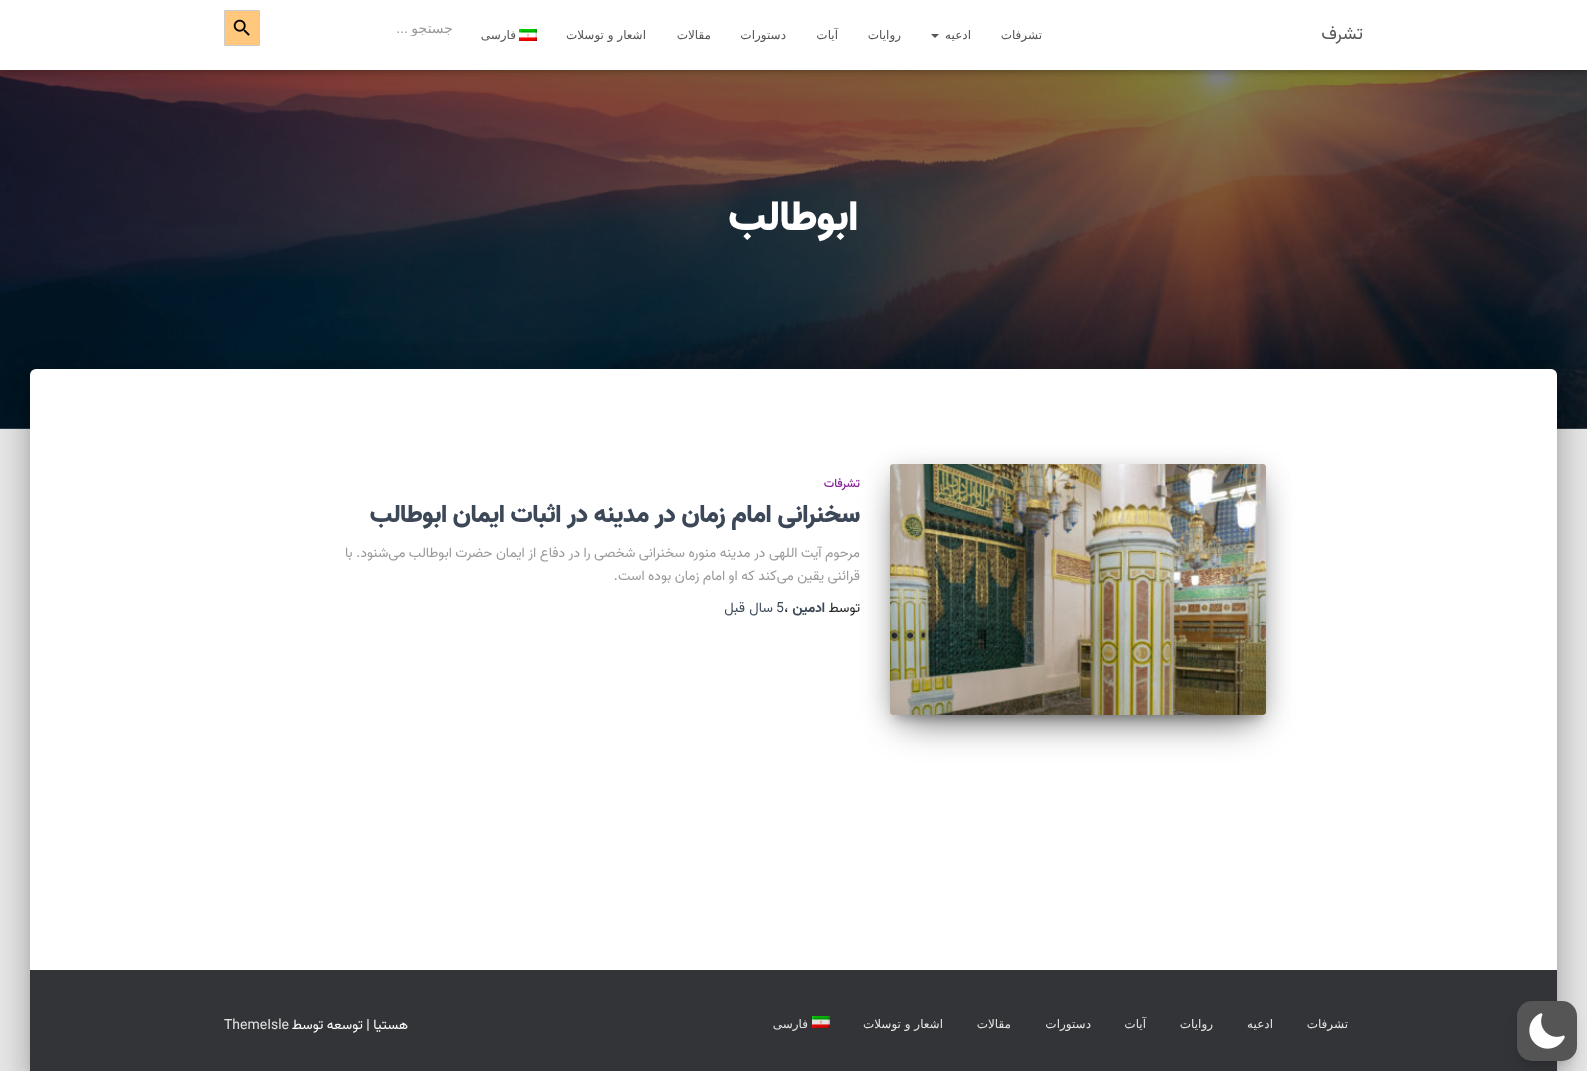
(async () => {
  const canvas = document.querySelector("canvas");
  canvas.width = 1587;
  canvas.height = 1071;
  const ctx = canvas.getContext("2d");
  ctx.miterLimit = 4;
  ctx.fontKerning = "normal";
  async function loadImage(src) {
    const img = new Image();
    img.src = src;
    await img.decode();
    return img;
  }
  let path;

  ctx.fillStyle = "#e5e5e5";
  ctx.fillRect(0, 0, 1587, 1071);
  ctx.drawImage(await loadImage("img/4.png"), 0, 70, 1587, 359);
  ctx.fillStyle = "rgba(0, 0, 0, 0.2)";
  ctx.filter = "blur(5px)";
  ctx.beginPath();
  ctx.roundRect(35, 382, 1517, 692, 1);
  ctx.fill();
  ctx.filter = "none";
  ctx.fillStyle = "rgba(0, 0, 0, 0.12)";
  ctx.filter = "blur(15px)";
  ctx.beginPath();
  ctx.roundRect(25, 370, 1537, 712, 11);
  ctx.fill();
  ctx.filter = "none";
  ctx.fillStyle = "rgba(0, 0, 0, 0.14)";
  ctx.filter = "blur(12px)";
  ctx.beginPath();
  ctx.roundRect(28, 383, 1531, 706, 8);
  ctx.fill();
  ctx.filter = "none";
  ctx.fillStyle = "#ffffff";
  ctx.beginPath();
  ctx.roundRect(30, 369, 1527, 702, [6, 6, 0, 0]);
  ctx.fill();
  ctx.fillStyle = "#323437";
  ctx.fillRect(30, 970, 1527, 101);
  ctx.fillStyle = "rgba(0, 0, 0, 0.1)";
  ctx.filter = "blur(3px)";
  ctx.beginPath();
  ctx.roundRect(1521, 1009, 52, 52, 11);
  ctx.fill();
  ctx.filter = "none";
  ctx.filter = "blur(7.5px)";
  ctx.beginPath();
  ctx.roundRect(1520, 1014, 54, 54, 12);
  ctx.fill();
  ctx.filter = "none";
  ctx.fillStyle = "#555555";
  ctx.beginPath();
  ctx.roundRect(1517, 1001, 60, 60, 15);
  ctx.fill();
  ctx.drawImage(await loadImage("img/1.png"), 1529, 1013, 36, 36);
  ctx.fillStyle = "rgba(0, 0, 0, 0.1)";
  ctx.filter = "blur(2.5px)";
  ctx.beginPath();
  ctx.rect(2, 6, 1583, 66);
  ctx.fill();
  ctx.filter = "none";
  ctx.fillStyle = "rgba(0, 0, 0, 0.12)";
  ctx.filter = "blur(5px)";
  ctx.beginPath();
  ctx.rect(0, 1, 1587, 70);
  ctx.fill();
  ctx.filter = "none";
  ctx.fillStyle = "rgba(0, 0, 0, 0.42)";
  ctx.filter = "blur(5px)";
  ctx.beginPath();
  ctx.rect(6, 7, 1575, 58);
  ctx.fill();
  ctx.filter = "none";
  ctx.fillStyle = "#ffffff";
  ctx.fillRect(0, 0, 1587, 70);
  ctx.fillStyle = "#555555";
  path = new Path2D("M931 34H939L935 38Z");
  ctx.fill(path);
  ctx.drawImage(await loadImage("img/2.png"), 519, 29, 18, 12);
  ctx.fillStyle = "#ffc87c";
  ctx.beginPath();
  ctx.rect(224.5, 10.5, 35, 35);
  ctx.fill();
  ctx.strokeStyle = "#cccccc";
  ctx.stroke();
  ctx.drawImage(await loadImage("img/3.png"), 233, 19, 17, 17);
  ctx.fillStyle = "rgba(0, 0, 0, 0.2)";
  ctx.filter = "blur(5px)";
  ctx.beginPath();
  ctx.rect(895, 477, 366, 241);
  ctx.fill();
  ctx.filter = "none";
  ctx.fillStyle = "rgba(0, 0, 0, 0.12)";
  ctx.filter = "blur(12.5px)";
  ctx.beginPath();
  ctx.roundRect(890, 468, 376, 251, 3);
  ctx.fill();
  ctx.filter = "none";
  ctx.fillStyle = "rgba(0, 0, 0, 0.56)";
  ctx.filter = "blur(19px)";
  ctx.beginPath();
  ctx.rect(902, 492, 352, 227);
  ctx.fill();
  ctx.filter = "none";
  ctx.drawImage(await loadImage("img/5.png"), 890, 464, 376, 251);
  ctx.drawImage(await loadImage("img/6.png"), 812, 1016, 18, 12);
  ctx.direction = "rtl";
  ctx.font = "18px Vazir";
  ctx.fillStyle = "#555555";
  ctx.fillText("تشرف", 1363, 39);
  ctx.font = "12px DejaVu Sans";
  for (const [text, x, y] of [
    ["تشرفات", 1042, 39],
    ["ادعیه", 971, 39],
    ["روایات", 901, 39],
    ["آیات", 838, 39],
    ["دستورات", 786, 39],
    ["مقالات", 711, 39],
    ["اشعار و توسلات", 646, 39],
    ["فارسی", 516, 39],
  ]) {
    ctx.fillText(text, x, y);
  }
  ctx.save();
  ctx.beginPath();
  ctx.rect(273, 20, 181, 16);
  ctx.clip();
  ctx.font = "14px DejaVu Sans";
  ctx.fillStyle = "#999999";
  ctx.fillText("جستجو", 453, 33);
  ctx.restore();
  ctx.font = "14px Liberation Sans";
  ctx.fillStyle = "#999999";
  ctx.fillText("...", 408, 33);
  ctx.font = "900 42px Vazir";
  ctx.fillStyle = "#ffffff";
  ctx.fillText("ابوطالب", 858, 230);
  ctx.font = "500 12px Vazir";
  ctx.fillStyle = "#89229b";
  ctx.fillText("تشرفات", 860, 487);
  ctx.font = "900 25px Vazir";
  ctx.fillStyle = "#3c4858";
  ctx.fillText("سخنرانی امام زمان در مدینه در اثبات ایمان ابوطالب", 860, 522);
  ctx.font = "14px Vazir";
  ctx.fillStyle = "#999999";
  ctx.fillText("مرحوم آیت اللهی در مدینه منوره سخنرانی شخصی را در دفاع از ایمان حضرت ابوطالب می‌شنود. با", 860, 557);
  ctx.fillText("قرائنی یقین می‌کند که او امام زمان بوده است.", 860, 580);
  ctx.fillStyle = "#212121";
  ctx.fillText("توسط", 860, 612);
  ctx.font = "bold 14px Vazir";
  ctx.fillStyle = "#3c4858";
  ctx.fillText("ادمین", 825, 612);
  ctx.direction = "ltr";
  ctx.font = "14px Vazir";
  ctx.fillStyle = "#212121";
  ctx.fillText("،", 784, 612);
  ctx.fillStyle = "#3c4858";
  ctx.fillText("5", 776, 612);
  ctx.direction = "rtl";
  ctx.fillText("سال", 773, 612);
  ctx.fillText("قبل", 745, 612);
  ctx.font = "12px DejaVu Sans";
  ctx.fillStyle = "#e2e3e3";
  for (const [text, x, y] of [
    ["تشرفات", 1348, 1028],
    ["ادعیه", 1273, 1028],
    ["روایات", 1213, 1028],
    ["آیات", 1146, 1028],
    ["دستورات", 1091, 1028],
    ["مقالات", 1011, 1028],
    ["اشعار و توسلات", 943, 1028],
    ["فارسی", 808, 1028],
  ]) {
    ctx.fillText(text, x, y);
  }
  ctx.font = "14px Vazir";
  ctx.fillStyle = "#ffffff";
  ctx.fillText("هستیا | توسعه توسط", 408, 1029);
  ctx.direction = "ltr";
  ctx.fillStyle = "#e2e3e3";
  ctx.fillText("ThemeIsle", 224, 1029);
})();
